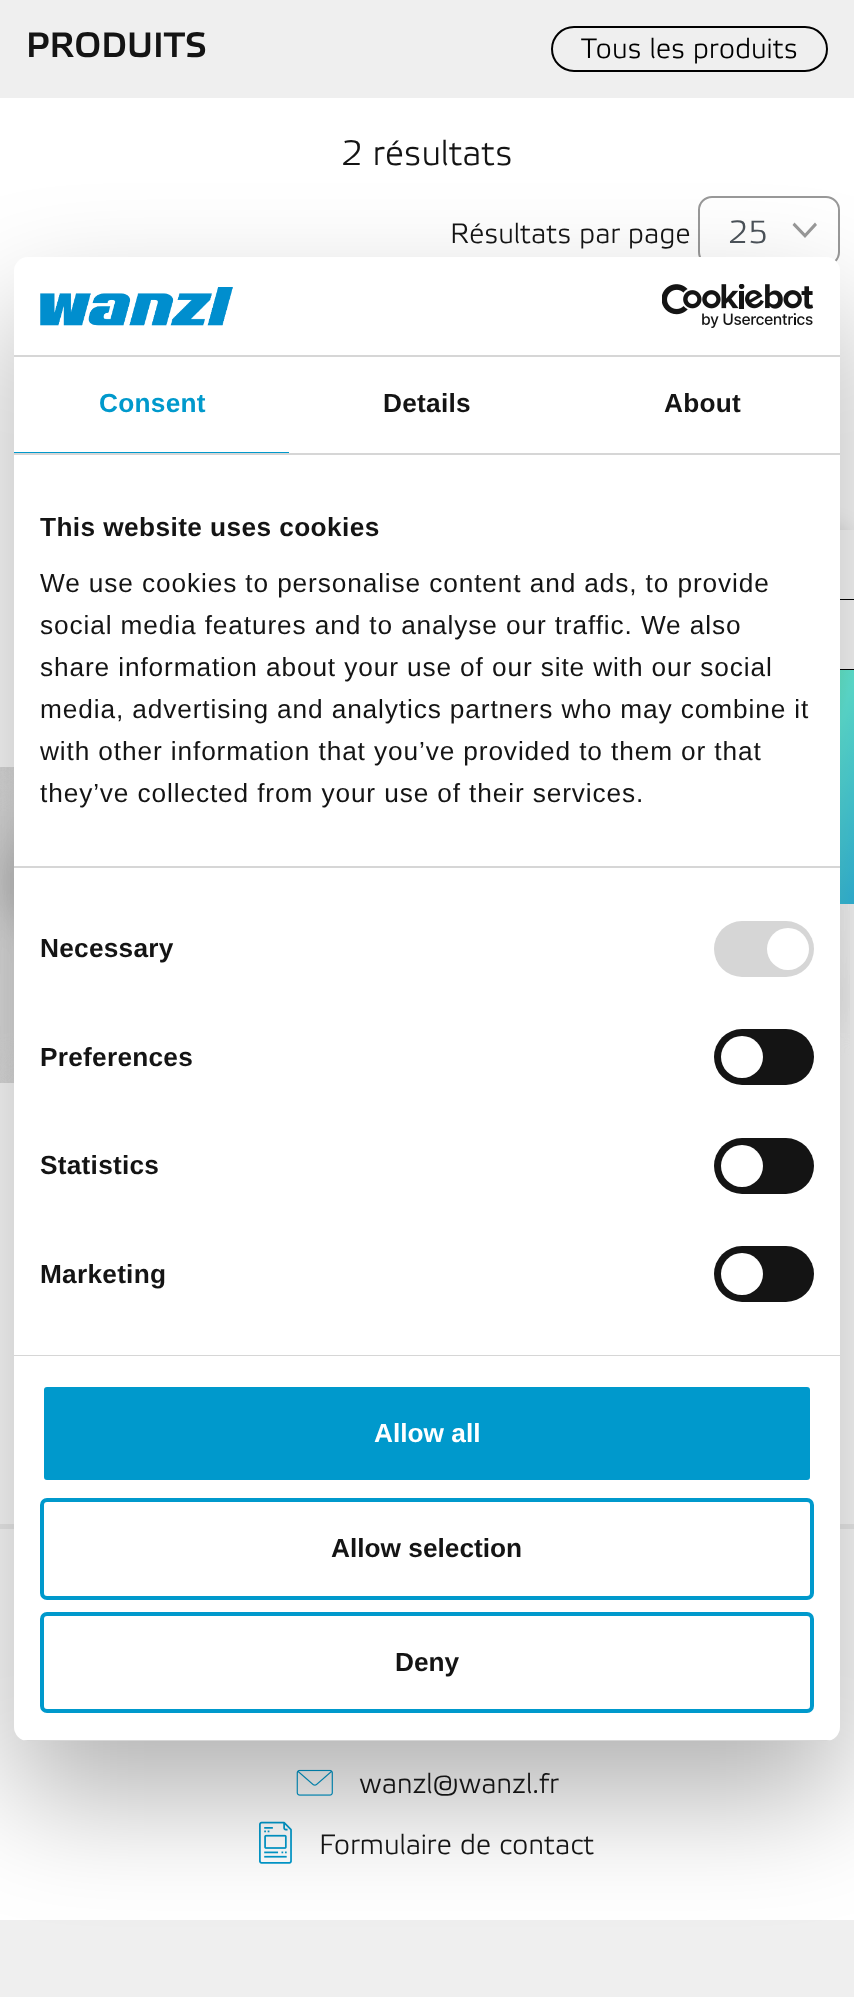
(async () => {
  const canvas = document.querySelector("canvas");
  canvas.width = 854;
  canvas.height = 1997;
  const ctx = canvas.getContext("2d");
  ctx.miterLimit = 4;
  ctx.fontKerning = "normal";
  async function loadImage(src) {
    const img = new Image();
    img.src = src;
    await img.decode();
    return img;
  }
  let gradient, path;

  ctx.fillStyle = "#ffffff";
  ctx.fillRect(0, 0, 854, 1997);
  ctx.fillStyle = "#efefef";
  ctx.fillRect(0, 0, 854, 98);
  ctx.beginPath();
  ctx.roundRect(552, 27, 275, 44, 22);
  ctx.strokeStyle = "#000000";
  ctx.lineWidth = 2;
  ctx.stroke();
  ctx.beginPath();
  ctx.roundRect(699, 197, 140, 68, 13);
  ctx.strokeStyle = "#999999";
  ctx.stroke();
  ctx.fillStyle = "#999999";
  path = new Path2D("M792.5 225L794.5 222.5L805 233.5L815 222.5L817 225L805 238Z");
  ctx.fill(path);
  ctx.drawImage(await loadImage("img/1.png"), 0, 767, 14, 316);
  ctx.drawImage(await loadImage("img/2.png"), 840, 904, 10, 177);
  ctx.fillStyle = "rgba(0, 0, 0, 0.2)";
  ctx.filter = "blur(12px)";
  ctx.beginPath();
  ctx.roundRect(784, 530, 70, 140, 26);
  ctx.fill();
  ctx.filter = "none";
  for (const [x, y, w, h, color] of [
    [840, 530, 14, 69, "#ffffff"],
    [840, 599, 14, 1, "#000000"],
    [840, 600, 14, 69, "#ffffff"],
    [840, 669, 14, 1, "#000000"],
  ]) {
    ctx.fillStyle = color;
    ctx.fillRect(x, y, w, h);
  }
  gradient = ctx.createLinearGradient(752, 764, 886, 810);
  gradient.addColorStop(0, "#77f6a7");
  gradient.addColorStop(0.49, "#65f3e3");
  gradient.addColorStop(1, "#34bfe5");
  ctx.fillStyle = gradient;
  path = new Path2D("M784 878V670H854V904H810C796 904 784 892 784 878Z");
  ctx.fill(path);
  ctx.fillStyle = "#efefef";
  ctx.fillRect(0, 1524, 854, 5);
  ctx.drawImage(await loadImage("img/3.png"), 296, 1769, 37, 27);
  ctx.drawImage(await loadImage("img/4.png"), 259, 1821, 33, 43);
  ctx.fillRect(0, 1920, 854, 77);
  ctx.fillStyle = "rgba(0, 0, 0, 0.3)";
  ctx.filter = "blur(59.5px)";
  ctx.beginPath();
  ctx.roundRect(14, 313, 826, 1484, 14);
  ctx.fill();
  ctx.filter = "none";
  ctx.fillStyle = "#ffffff";
  ctx.beginPath();
  ctx.roundRect(14, 257, 826, 1484, 14);
  ctx.fill();
  ctx.fillStyle = "#d6d6d6";
  ctx.fillRect(14, 355, 826, 2);
  ctx.drawImage(await loadImage("img/5.png"), 40, 287, 193, 39);
  ctx.drawImage(await loadImage("img/6.png"), 662, 284, 152, 44);
  for (const [x, y, w, h, color] of [
    [14, 453, 826, 2, "#d6d6d6"],
    [14, 452, 275, 1, "#0099cc"],
    [14, 866, 826, 2, "#d6d6d6"],
    [14, 1355, 826, 1, "#d6d6d6"],
  ]) {
    ctx.fillStyle = color;
    ctx.fillRect(x, y, w, h);
  }
  ctx.beginPath();
  ctx.roundRect(714, 921, 100, 56, 28);
  ctx.fill();
  ctx.fillStyle = "#ffffff";
  ctx.beginPath();
  ctx.arc(788, 949, 21, 0, Math.PI * 2);
  ctx.fill();
  ctx.fillStyle = "#141414";
  ctx.beginPath();
  ctx.roundRect(714, 1029, 100, 56, 28);
  ctx.fill();
  ctx.fillStyle = "#ffffff";
  ctx.beginPath();
  ctx.arc(742, 1057, 21, 0, Math.PI * 2);
  ctx.fill();
  ctx.fillStyle = "#141414";
  ctx.beginPath();
  ctx.roundRect(714, 1138, 100, 56, 28);
  ctx.fill();
  ctx.fillStyle = "#ffffff";
  ctx.beginPath();
  ctx.arc(742, 1166, 21, 0, Math.PI * 2);
  ctx.fill();
  ctx.fillStyle = "#141414";
  ctx.beginPath();
  ctx.roundRect(714, 1246, 100, 56, 28);
  ctx.fill();
  ctx.fillStyle = "#ffffff";
  ctx.beginPath();
  ctx.arc(742, 1274, 21, 0, Math.PI * 2);
  ctx.fill();
  ctx.save();
  ctx.beginPath();
  ctx.roundRect(14, 257, 826, 1484, 14);
  ctx.clip();
  ctx.fillStyle = "#d6d6d6";
  ctx.fillRect(23, 1740, 808, 1);
  ctx.restore();
  ctx.fillStyle = "#0099cc";
  ctx.beginPath();
  ctx.roundRect(42, 1385, 770, 97, 5);
  ctx.fill();
  ctx.strokeStyle = "#ffffff";
  ctx.lineWidth = 4;
  ctx.stroke();
  ctx.beginPath();
  ctx.roundRect(42, 1500, 770, 98, 5);
  ctx.strokeStyle = "#0099cc";
  ctx.stroke();
  ctx.beginPath();
  ctx.roundRect(42, 1614, 770, 97, 5);
  ctx.stroke();
  ctx.font = "500 35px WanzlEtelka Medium";
  ctx.fillStyle = "#141414";
  ctx.fillText("PRODUITS", 26, 57);
  ctx.font = "28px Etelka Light";
  ctx.fillStyle = "#000000";
  ctx.fillText("Tous les produits", 581, 58);
  ctx.font = "35px Etelka Light";
  ctx.fillStyle = "#141414";
  ctx.fillText("2 résultats", 341, 165);
  ctx.font = "28px Etelka Light";
  ctx.fillText("Résultats par page", 450, 243);
  ctx.font = "32px Etelka Light";
  ctx.fillStyle = "#495057";
  ctx.fillText("25", 728, 243);
  ctx.font = "28px Etelka Light";
  ctx.fillStyle = "#141414";
  ctx.fillText("wanzl@wanzl.fr", 359, 1793);
  ctx.fillText("Formulaire de contact", 319, 1854);
  ctx.letterSpacing = "0.25px";
  ctx.font = "bold 26.25px Liberation Sans";
  ctx.fillStyle = "#0099cc";
  ctx.fillText("Consent", 99, 412);
  ctx.fillStyle = "#141414";
  ctx.fillText("Details", 383, 412);
  ctx.fillText("About", 664, 412);
  ctx.letterSpacing = "0.4px";
  ctx.fillText("This website uses cookies", 40, 536);
  ctx.letterSpacing = "0.88px";
  ctx.font = "26.25px Liberation Sans";
  for (const [text, x, y] of [
    ["We use cookies to personalise content and ads, to provide", 40, 592],
    ["social media features and to analyse our traffic. We also", 40, 634],
    ["share information about your use of our site with our social", 40, 676],
    ["media, advertising and analytics partners who may combine it", 40, 718],
    ["with other information that you’ve provided to them or that", 40, 760],
    ["they’ve collected from your use of their services.", 40, 802],
  ]) {
    ctx.fillText(text, x, y);
  }
  ctx.letterSpacing = "0.25px";
  ctx.font = "bold 26.25px Liberation Sans";
  for (const [text, x, y] of [
    ["Necessary", 40, 957],
    ["Preferences", 40, 1066],
    ["Statistics", 40, 1174],
    ["Marketing", 40, 1283],
  ]) {
    ctx.fillText(text, x, y);
  }
  ctx.letterSpacing = "0px";
  ctx.fillStyle = "#ffffff";
  ctx.fillText("Allow all", 374, 1442);
  ctx.fillStyle = "#141414";
  ctx.fillText("Allow selection", 331, 1557);
  ctx.fillText("Deny", 395, 1671);
})();
